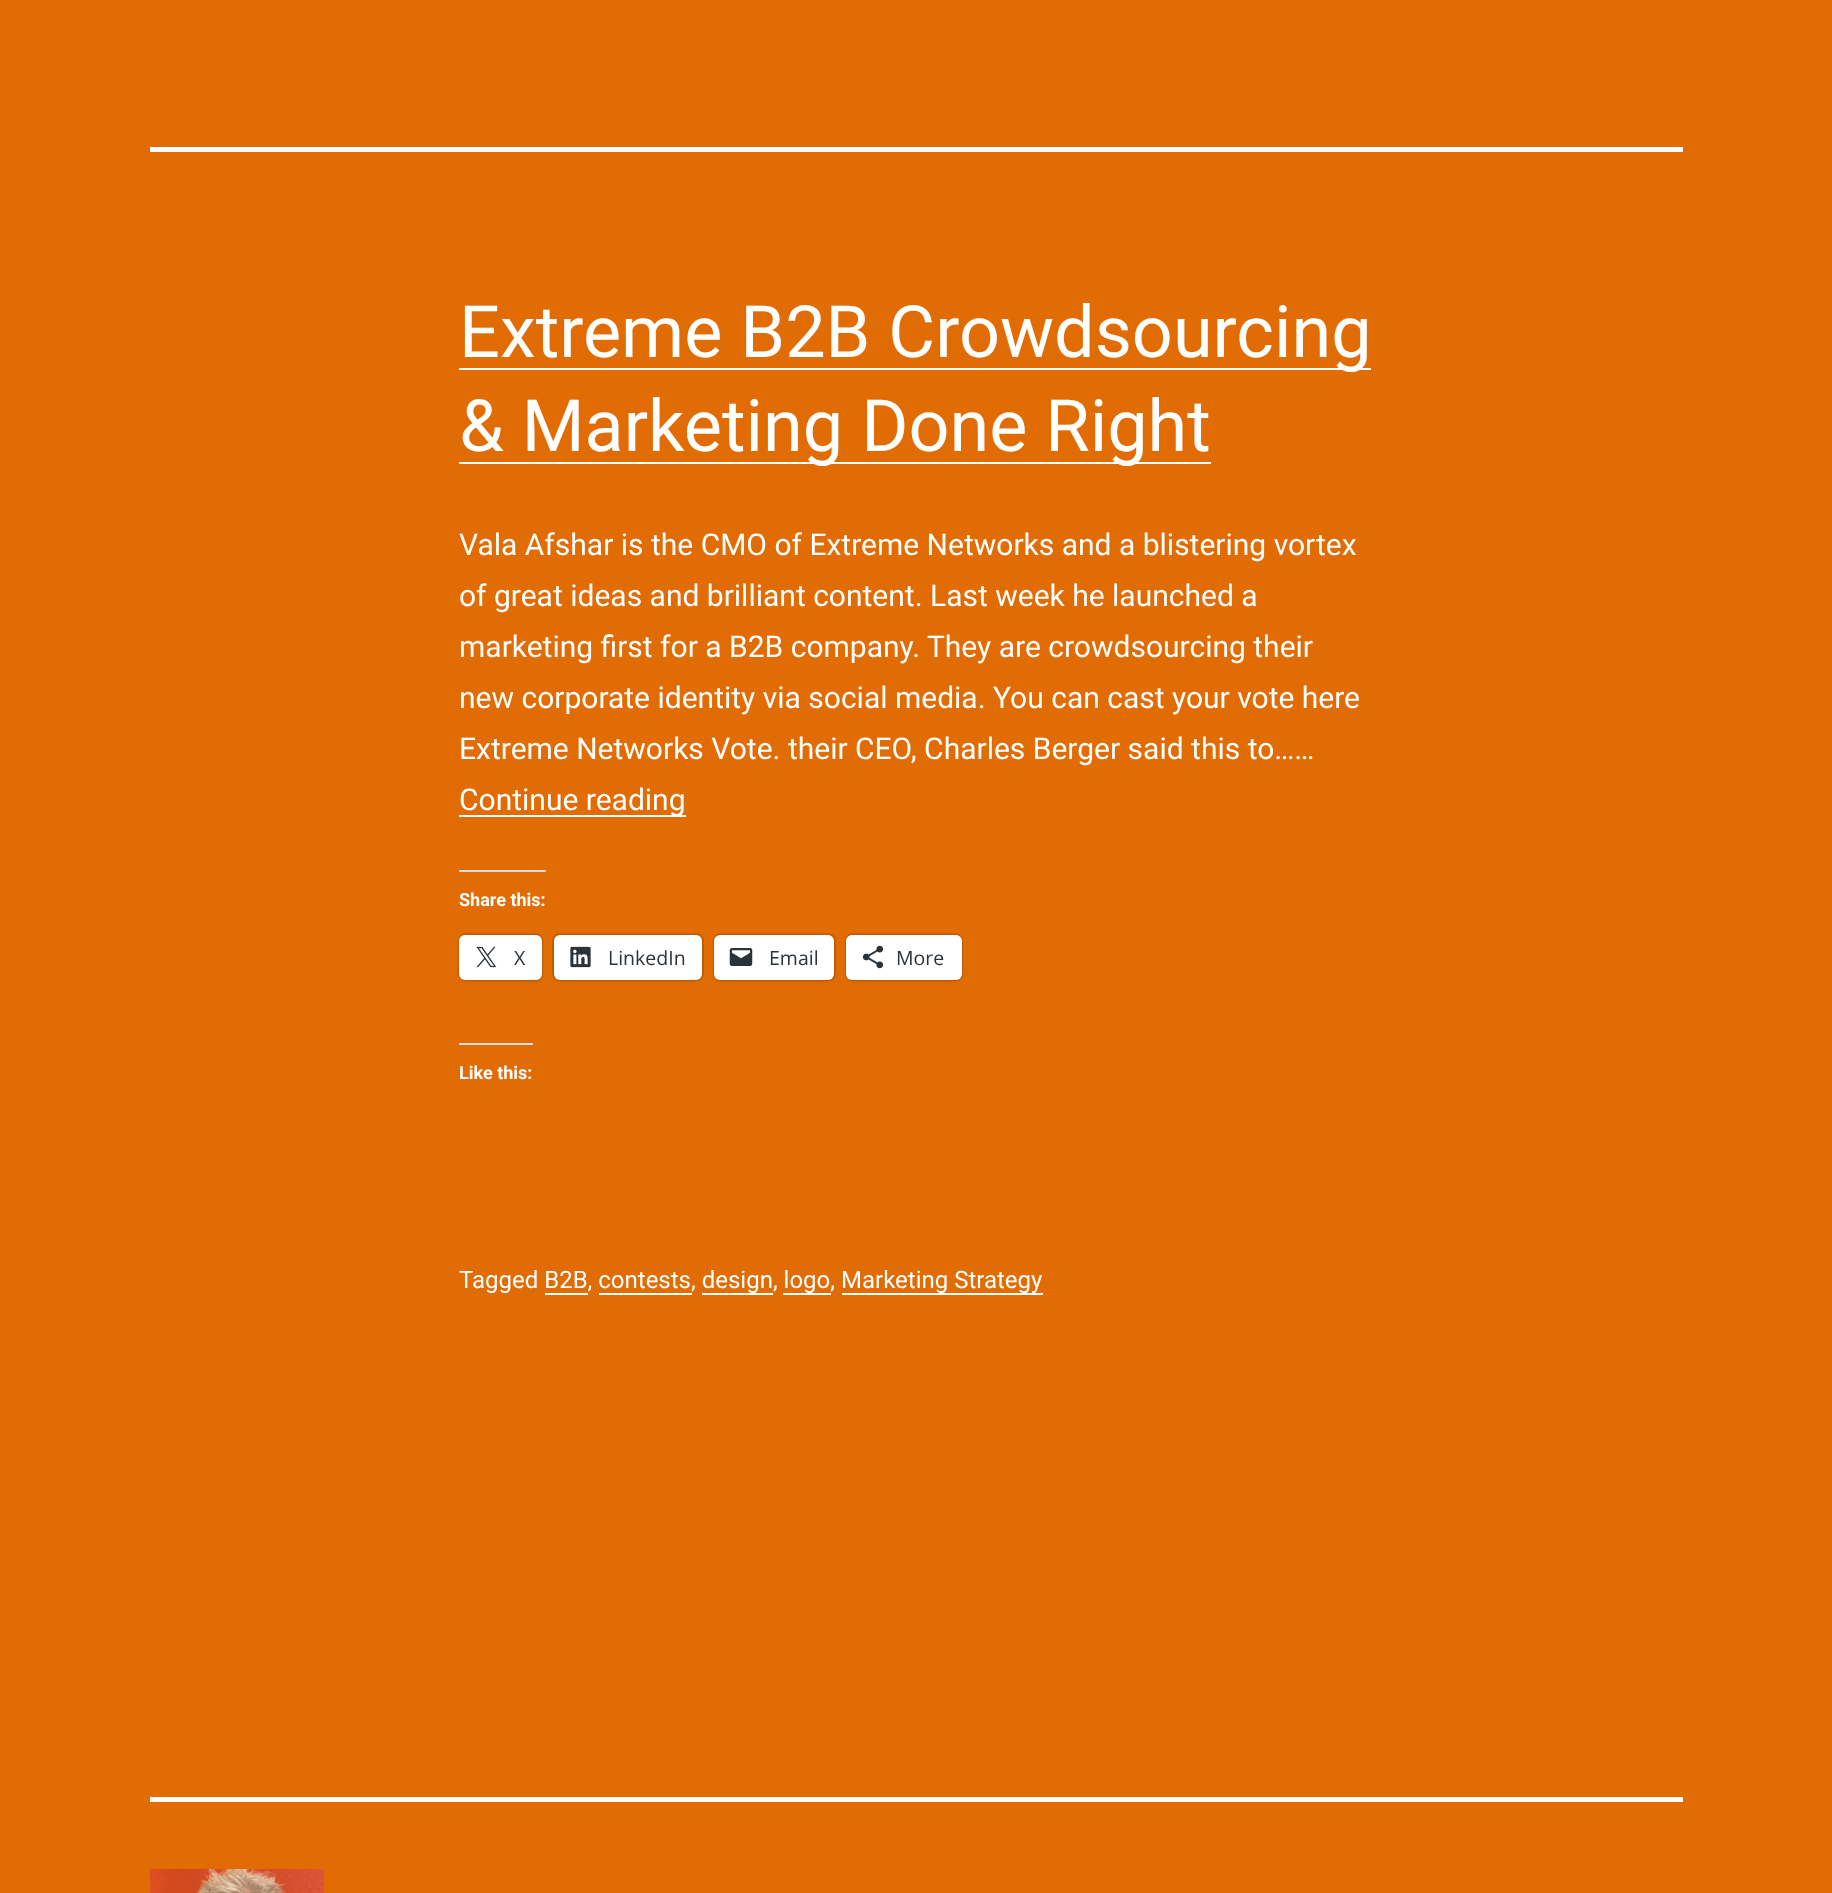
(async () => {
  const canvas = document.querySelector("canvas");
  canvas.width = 1832;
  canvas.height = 1893;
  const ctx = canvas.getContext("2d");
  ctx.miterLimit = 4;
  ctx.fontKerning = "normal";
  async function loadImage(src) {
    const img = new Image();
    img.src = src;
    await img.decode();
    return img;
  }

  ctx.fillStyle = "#e26c04";
  ctx.fillRect(0, 0, 1832, 1893);
  for (const [x, y, w, h, color] of [
    [150, 147, 1533, 5, "#ffffff"],
    [459, 368, 912, 2, "#ffffff"],
    [459, 462, 752, 2, "#ffffff"],
    [459, 815, 227, 2, "#ffffff"],
    [459, 870, 87, 2, "#dcdcde"],
  ]) {
    ctx.fillStyle = color;
    ctx.fillRect(x, y, w, h);
  }
  ctx.beginPath();
  ctx.roundRect(459, 934, 83, 46, 7);
  ctx.strokeStyle = "#c75f04";
  ctx.lineWidth = 2;
  ctx.stroke();
  ctx.fillStyle = "rgba(0, 0, 0, 0.12)";
  ctx.filter = "blur(1.5px)";
  ctx.beginPath();
  ctx.roundRect(459, 936, 83, 45, 6);
  ctx.fill();
  ctx.filter = "none";
  ctx.fillStyle = "#ffffff";
  ctx.beginPath();
  ctx.roundRect(459, 935, 83, 45, 6);
  ctx.fill();
  ctx.drawImage(await loadImage("img/1.png"), 476, 946, 21, 22);
  ctx.beginPath();
  ctx.roundRect(553, 934, 150, 46, 7);
  ctx.stroke();
  ctx.fillStyle = "rgba(0, 0, 0, 0.12)";
  ctx.filter = "blur(1.5px)";
  ctx.beginPath();
  ctx.roundRect(554, 936, 148, 45, 6);
  ctx.fill();
  ctx.filter = "none";
  ctx.fillStyle = "#ffffff";
  ctx.beginPath();
  ctx.roundRect(554, 935, 148, 45, 6);
  ctx.fill();
  ctx.drawImage(await loadImage("img/2.png"), 570, 946, 21, 22);
  ctx.beginPath();
  ctx.roundRect(714, 934, 121, 46, 7);
  ctx.stroke();
  ctx.fillStyle = "rgba(0, 0, 0, 0.12)";
  ctx.filter = "blur(1.5px)";
  ctx.beginPath();
  ctx.roundRect(714, 936, 120, 45, 6);
  ctx.fill();
  ctx.filter = "none";
  ctx.fillStyle = "#ffffff";
  ctx.beginPath();
  ctx.roundRect(714, 935, 120, 45, 6);
  ctx.fill();
  ctx.drawImage(await loadImage("img/3.png"), 729, 948, 24, 18);
  ctx.beginPath();
  ctx.roundRect(846, 934, 116, 46, 7);
  ctx.stroke();
  ctx.fillStyle = "rgba(0, 0, 0, 0.12)";
  ctx.filter = "blur(1.5px)";
  ctx.beginPath();
  ctx.roundRect(846, 936, 116, 45, 6);
  ctx.fill();
  ctx.filter = "none";
  ctx.fillStyle = "#ffffff";
  ctx.beginPath();
  ctx.roundRect(846, 935, 116, 45, 6);
  ctx.fill();
  ctx.drawImage(await loadImage("img/4.png"), 862, 945, 22, 24);
  for (const [x, y, w, h, color] of [
    [459, 1043, 74, 2, "#dcdcde"],
    [842, 1293, 201, 2, "#ffffff"],
    [545, 1293, 43, 2, "#ffffff"],
    [599, 1293, 93, 2, "#ffffff"],
    [702, 1293, 71, 2, "#ffffff"],
    [783, 1293, 48, 2, "#ffffff"],
    [150, 1797, 1533, 5, "#ffffff"],
  ]) {
    ctx.fillStyle = color;
    ctx.fillRect(x, y, w, h);
  }
  ctx.drawImage(await loadImage("img/5.png"), 150, 1869, 174, 24);
  ctx.font = "72px Roboto";
  ctx.fillText("Extreme B2B Crowdsourcing", 459, 357);
  ctx.fillText("& Marketing Done Right", 459, 451);
  ctx.font = "30px Roboto";
  for (const [text, x, y] of [
    ["Vala Afshar is the CMO of Extreme Networks and a blistering vortex", 459, 555],
    ["of great ideas and brilliant content. Last week he launched a", 459, 606],
    ["marketing first for a B2B company. They are crowdsourcing their", 459, 657],
    ["new corporate identity via social media. You can cast your vote here", 459, 708],
    ["Extreme Networks Vote. their CEO, Charles Berger said this to……", 459, 759],
    ["Continue reading", 459, 810],
  ]) {
    ctx.fillText(text, x, y);
  }
  ctx.font = "bold 18px Roboto";
  ctx.fillText("Share this:", 459, 906);
  ctx.font = "19.5px Open Sans";
  ctx.fillStyle = "#2c3338";
  for (const [text, x, y] of [
    ["X", 514, 965],
    ["LinkedIn", 608, 965],
    ["Email", 769, 965],
    ["More", 896, 965],
  ]) {
    ctx.fillText(text, x, y);
  }
  ctx.font = "bold 18px Roboto";
  ctx.fillStyle = "#ffffff";
  ctx.fillText("Like this:", 459, 1079);
  ctx.font = "24px Roboto";
  ctx.fillText("Tagged B2B, contests, design, logo,", 459, 1288);
  ctx.fillText("Marketing Strategy", 841, 1288);
})();
